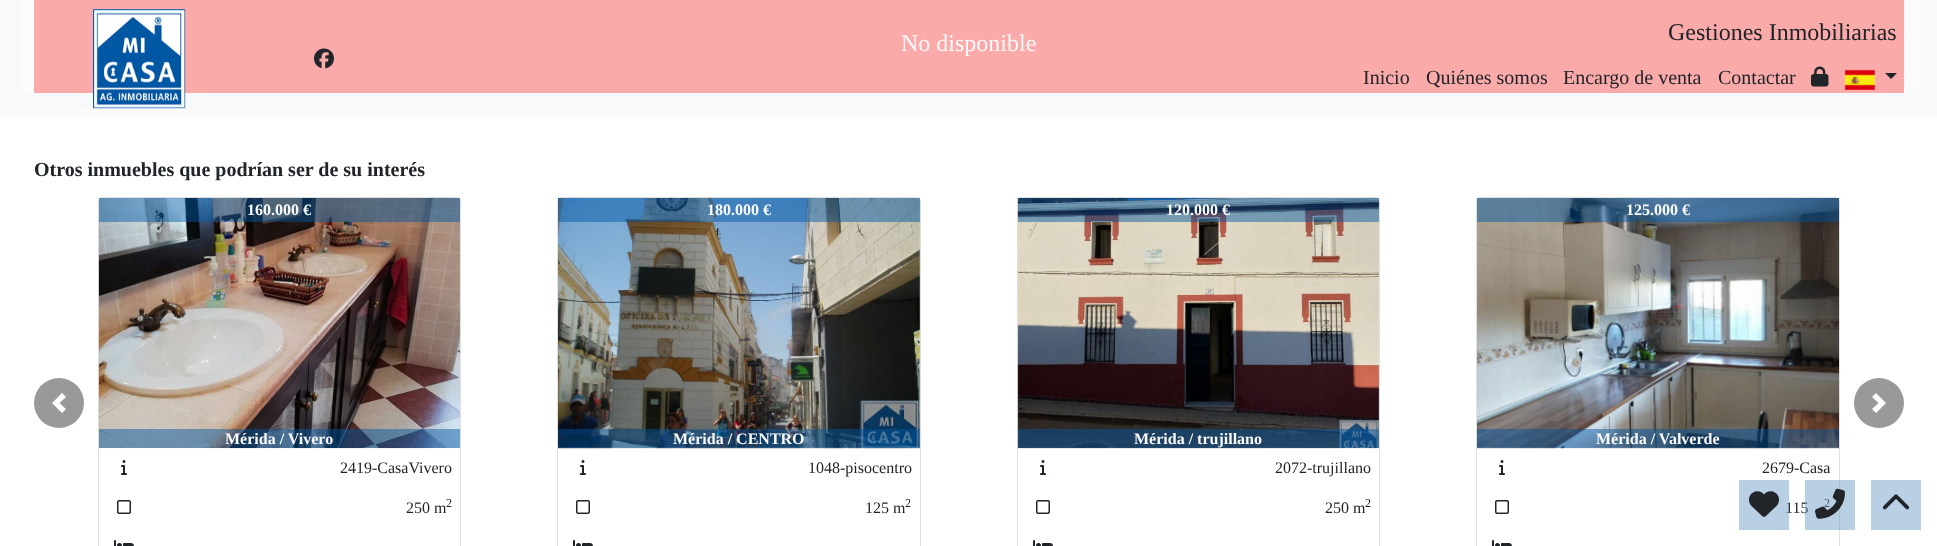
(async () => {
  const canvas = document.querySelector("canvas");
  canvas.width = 1937;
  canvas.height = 546;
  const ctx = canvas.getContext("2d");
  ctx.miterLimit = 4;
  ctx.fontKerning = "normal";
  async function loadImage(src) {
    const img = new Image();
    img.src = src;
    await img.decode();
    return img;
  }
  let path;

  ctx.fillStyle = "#ffffff";
  ctx.fillRect(0, 0, 1937, 546);
  for (const [x, y, w, h, color] of [
    [0, 109, 1937, 9, "#fbfbfc"],
    [0, 0, 1937, 109, "#f8f9fa"],
    [19, 0, 1900, 93, "#fbfbfc"],
    [34, 0, 1870, 93, "#fbaaaa"],
  ]) {
    ctx.fillStyle = color;
    ctx.fillRect(x, y, w, h);
  }
  ctx.drawImage(await loadImage("img/1.png"), 93, 9, 93, 100);
  ctx.drawImage(await loadImage("img/2.png"), 314, 48, 20, 21);
  ctx.drawImage(await loadImage("img/3.png"), 1811, 66, 18, 21);
  ctx.drawImage(await loadImage("img/4.png"), 1844, 69, 31, 21);
  ctx.fillStyle = "#212529";
  path = new Path2D("M1885 73H1897L1891 79Z");
  ctx.fill(path);
  ctx.fillStyle = "#999999";
  ctx.beginPath();
  ctx.arc(59, 403, 25, 0, Math.PI * 2);
  ctx.fill();
  ctx.fillStyle = "#ffffff";
  path = new Path2D("M62 393L52 403L62 413L66 409L59.5 403L66 397Z");
  ctx.fill(path);
  ctx.beginPath();
  ctx.roundRect(98.5, 197.5, 362, 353, 3.5);
  ctx.strokeStyle = "#dfdfdf";
  ctx.stroke();
  ctx.drawImage(await loadImage("img/5.png"), 98, 198, 362, 251);
  ctx.fillStyle = "rgba(0, 87, 164, 0.47)";
  ctx.fillRect(99, 198, 361, 24);
  ctx.fillRect(99, 429, 361, 19);
  ctx.drawImage(await loadImage("img/6.png"), 121, 460, 6, 15);
  ctx.drawImage(await loadImage("img/7.png"), 117, 500, 14, 14);
  ctx.drawImage(await loadImage("img/8.png"), 114, 540, 20, 6);
  ctx.beginPath();
  ctx.roundRect(557.5, 197.5, 363, 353, 3.5);
  ctx.stroke();
  ctx.drawImage(await loadImage("img/9.png"), 558, 198, 362, 251);
  ctx.fillRect(558, 198, 362, 24);
  ctx.fillRect(558, 429, 362, 19);
  ctx.drawImage(await loadImage("img/6.png"), 580, 460, 6, 15);
  ctx.drawImage(await loadImage("img/7.png"), 576, 500, 14, 14);
  ctx.drawImage(await loadImage("img/8.png"), 573, 540, 20, 6);
  ctx.beginPath();
  ctx.roundRect(1017.5, 197.5, 362, 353, 3.5);
  ctx.stroke();
  ctx.drawImage(await loadImage("img/10.png"), 1017, 198, 362, 251);
  ctx.fillRect(1018, 198, 361, 24);
  ctx.fillRect(1018, 429, 361, 19);
  ctx.drawImage(await loadImage("img/6.png"), 1040, 460, 6, 15);
  ctx.drawImage(await loadImage("img/7.png"), 1036, 500, 14, 14);
  ctx.drawImage(await loadImage("img/8.png"), 1033, 540, 20, 6);
  ctx.beginPath();
  ctx.roundRect(1476.5, 197.5, 363, 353, 3.5);
  ctx.stroke();
  ctx.drawImage(await loadImage("img/11.png"), 1477, 198, 362, 251);
  ctx.fillRect(1477, 198, 362, 24);
  ctx.fillRect(1477, 429, 362, 19);
  ctx.drawImage(await loadImage("img/6.png"), 1499, 460, 6, 15);
  ctx.drawImage(await loadImage("img/7.png"), 1495, 500, 14, 14);
  ctx.drawImage(await loadImage("img/8.png"), 1492, 540, 20, 6);
  ctx.fillStyle = "#999999";
  ctx.beginPath();
  ctx.arc(1879, 403, 25, 0, Math.PI * 2);
  ctx.fill();
  ctx.fillStyle = "#ffffff";
  path = new Path2D("M1876 393L1872 397L1878.5 403L1872 409L1876 413L1886 403Z");
  ctx.fill(path);
  ctx.fillStyle = "#b9d0e4";
  ctx.fillRect(1871, 480, 50, 50);
  ctx.drawImage(await loadImage("img/14.png"), 1882, 494, 28, 16);
  ctx.font = "24px Liberation Serif";
  ctx.fillStyle = "#f8f9fa";
  ctx.fillText("No disponible", 901, 51);
  ctx.fillStyle = "#212529";
  ctx.fillText("Gestiones Inmobiliarias", 1668, 40);
  ctx.font = "20px Liberation Serif";
  for (const [text, x, y] of [
    ["Inicio", 1363, 84],
    ["Quiénes somos", 1426, 84],
    ["Encargo de venta", 1563, 84],
    ["Contactar", 1718, 84],
  ]) {
    ctx.fillText(text, x, y);
  }
  ctx.font = "bold 20px Liberation Serif";
  ctx.fillText("Otros inmuebles que podrían ser de su interés", 34, 176);
  ctx.font = "bold 16px Liberation Serif";
  ctx.fillStyle = "#f8f9fa";
  ctx.fillText("160.000 €", 247, 215);
  ctx.fillText("Mérida / Vivero", 225, 444);
  ctx.font = "16px Liberation Serif";
  ctx.fillStyle = "#212529";
  ctx.fillText("2419-CasaVivero", 340, 473);
  ctx.fillText("250 m", 406, 513);
  ctx.font = "12px Liberation Serif";
  ctx.fillText("2", 446, 507);
  ctx.font = "bold 16px Liberation Serif";
  ctx.fillStyle = "#f8f9fa";
  ctx.fillText("180.000 €", 707, 215);
  ctx.fillText("Mérida / CENTRO", 673, 444);
  ctx.font = "16px Liberation Serif";
  ctx.fillStyle = "#212529";
  ctx.fillText("1048-pisocentro", 808, 473);
  ctx.fillText("125 m", 865, 513);
  ctx.font = "12px Liberation Serif";
  ctx.fillText("2", 905, 507);
  ctx.font = "bold 16px Liberation Serif";
  ctx.fillStyle = "#f8f9fa";
  ctx.fillText("120.000 €", 1166, 215);
  ctx.fillText("Mérida / trujillano", 1134, 444);
  ctx.font = "16px Liberation Serif";
  ctx.fillStyle = "#212529";
  ctx.fillText("2072-trujillano", 1275, 473);
  ctx.fillText("250 m", 1325, 513);
  ctx.font = "12px Liberation Serif";
  ctx.fillText("2", 1365, 507);
  ctx.font = "bold 16px Liberation Serif";
  ctx.fillStyle = "#f8f9fa";
  ctx.fillText("125.000 €", 1626, 215);
  ctx.fillText("Mérida / Valverde", 1596, 444);
  ctx.font = "16px Liberation Serif";
  ctx.fillStyle = "#212529";
  ctx.fillText("2679-Casa", 1762, 473);
  ctx.fillText("115", 1785, 513);
  ctx.font = "12px Liberation Serif";
  ctx.fillText("2", 1824, 507);
  ctx.fillStyle = "rgba(106, 155, 197, 0.47)";
  ctx.fillRect(1739, 480, 50, 50);
  ctx.drawImage(await loadImage("img/12.png"), 1749, 491, 30, 26);
  ctx.fillRect(1805, 480, 50, 50);
  ctx.drawImage(await loadImage("img/13.png"), 1815, 488, 30, 31);
})();
